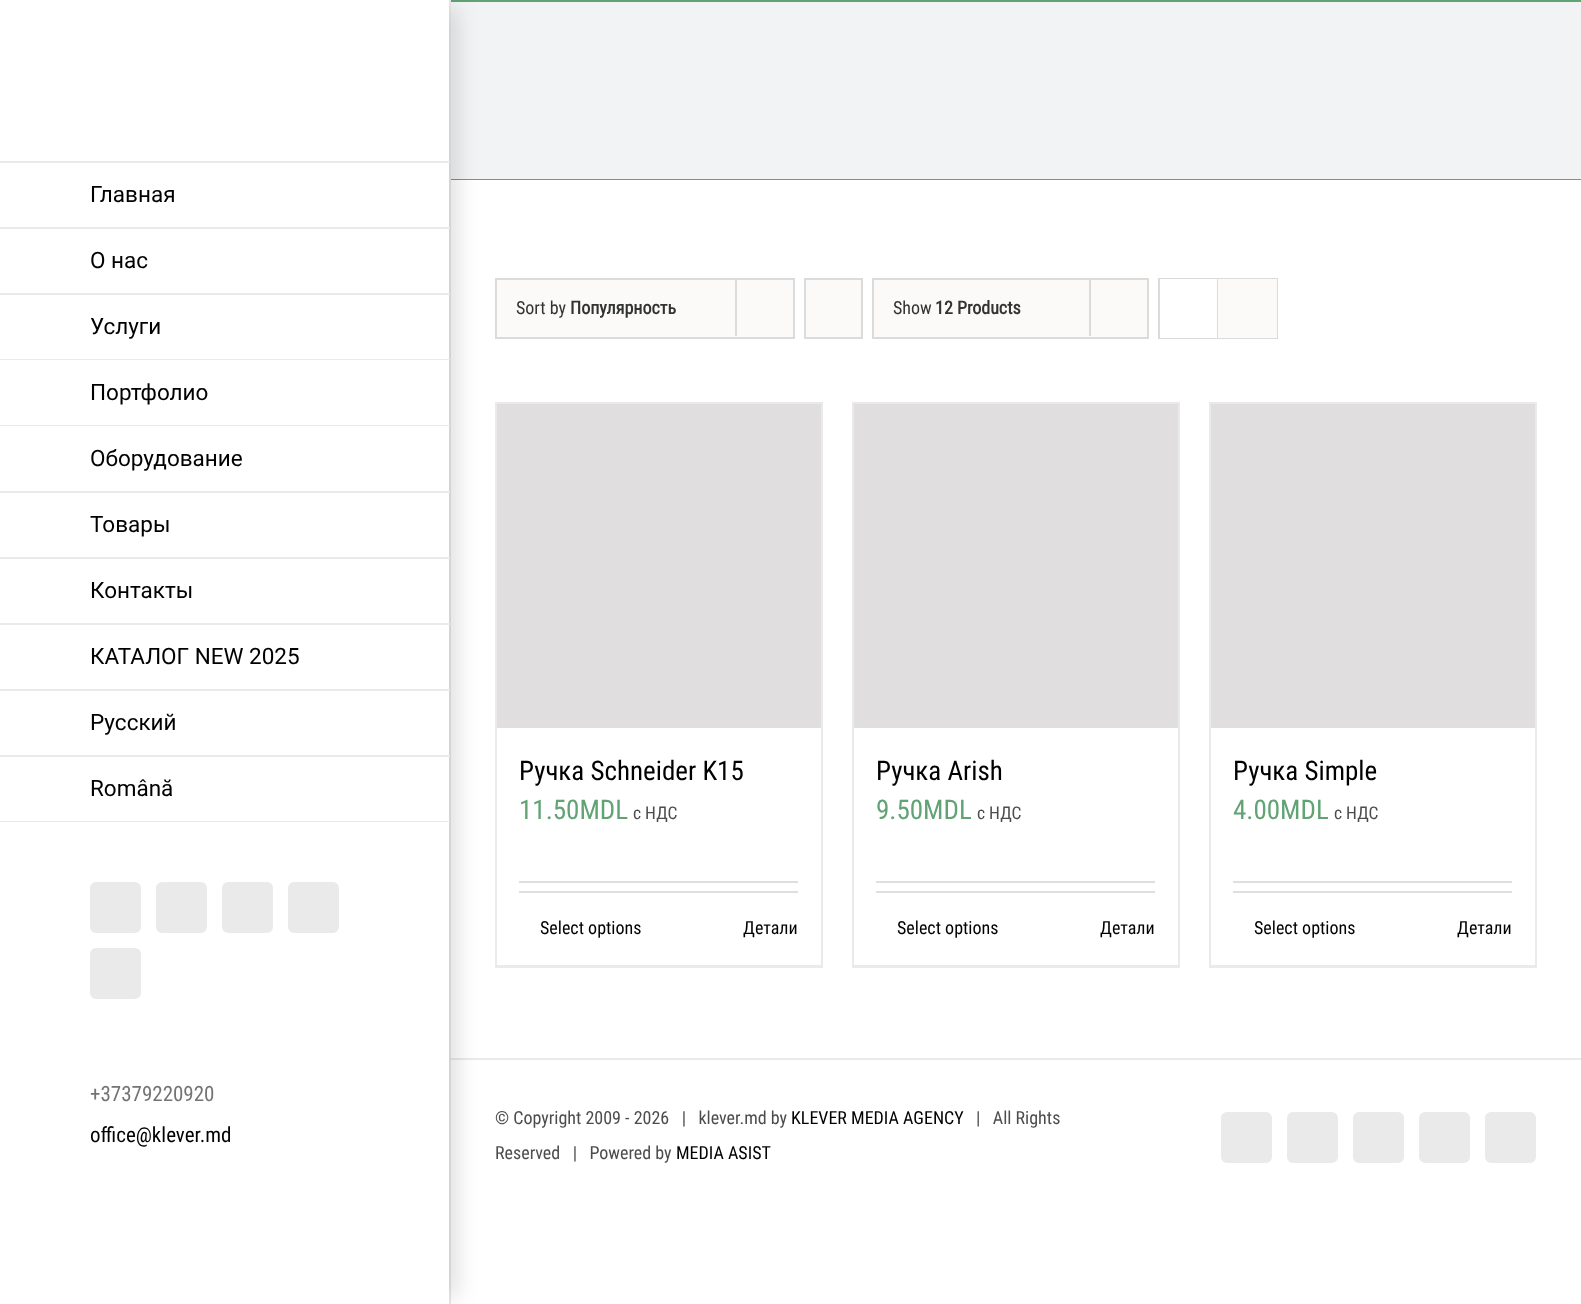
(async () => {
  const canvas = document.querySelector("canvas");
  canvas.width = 1581;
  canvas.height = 1304;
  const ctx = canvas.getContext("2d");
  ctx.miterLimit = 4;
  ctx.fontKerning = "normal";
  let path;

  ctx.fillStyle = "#ffffff";
  ctx.fillRect(0, 0, 1581, 1304);
  for (const [x, y, w, h, color] of [
    [451, 2, 1130, 177, "#f2f3f5"],
    [450, 0, 1131, 2, "#61a375"],
    [450, 179, 1131, 1, "#61a375"],
    [450, 1058, 1131, 2, "#eaeaea"],
    [449, 0, 2, 1304, "#eaeaea"],
  ]) {
    ctx.fillStyle = color;
    ctx.fillRect(x, y, w, h);
  }
  ctx.save();
  path = new Path2D("M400 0H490V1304H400ZM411 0H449V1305H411Z");
  ctx.clip(path, "evenodd");
  ctx.fillStyle = "rgba(0, 0, 0, 0.14)";
  ctx.filter = "blur(11px)";
  ctx.beginPath();
  ctx.rect(434, 8, 22, 1290);
  ctx.fill();
  ctx.filter = "none";
  ctx.restore();
  for (const [x, y, w, h, color] of [
    [0, 161, 450, 2, "#eaeaea"],
    [0, 227, 450, 2, "#eaeaea"],
    [0, 293, 450, 2, "#eaeaea"],
    [0, 359, 450, 1, "#eaeaea"],
    [0, 425, 450, 1, "#eaeaea"],
    [0, 491, 450, 2, "#eaeaea"],
    [0, 557, 450, 2, "#eaeaea"],
    [0, 623, 450, 2, "#eaeaea"],
    [0, 689, 450, 2, "#eaeaea"],
    [0, 755, 450, 2, "#eaeaea"],
    [0, 821, 450, 1, "#eaeaea"],
  ]) {
    ctx.fillStyle = color;
    ctx.fillRect(x, y, w, h);
  }
  ctx.beginPath();
  ctx.roundRect(91, 883, 49, 49, 5);
  ctx.fill();
  ctx.strokeStyle = "#eaeaea";
  ctx.lineWidth = 2;
  ctx.stroke();
  ctx.beginPath();
  ctx.roundRect(157, 883, 49, 49, 5);
  ctx.fill();
  ctx.stroke();
  ctx.beginPath();
  ctx.roundRect(223, 883, 49, 49, 5);
  ctx.fill();
  ctx.stroke();
  ctx.beginPath();
  ctx.roundRect(289, 883, 49, 49, 5);
  ctx.fill();
  ctx.stroke();
  ctx.beginPath();
  ctx.roundRect(91, 949, 49, 49, 5);
  ctx.fill();
  ctx.stroke();
  ctx.fillStyle = "#fbfaf9";
  ctx.beginPath();
  ctx.rect(496, 279, 298, 59);
  ctx.fill();
  ctx.strokeStyle = "#dbdbdb";
  ctx.stroke();
  ctx.fillStyle = "#dbdbdb";
  ctx.fillRect(735, 278, 2, 58);
  ctx.fillStyle = "#fbfaf9";
  ctx.beginPath();
  ctx.rect(805, 279, 57, 59);
  ctx.fill();
  ctx.stroke();
  ctx.beginPath();
  ctx.rect(873, 279, 275, 59);
  ctx.fill();
  ctx.stroke();
  ctx.fillStyle = "#dbdbdb";
  ctx.fillRect(1089, 278, 2, 58);
  ctx.strokeRect(1159, 279, 118, 59);
  for (const [x, y, w, h, color] of [
    [1160, 279, 57, 59, "#ffffff"],
    [1217, 279, 1, 59, "#dbdbdb"],
    [1218, 279, 59, 59, "#fbfaf9"],
    [495, 402, 327, 2, "#ebeaea"],
    [821, 402, 2, 566, "#ebeaea"],
    [495, 965, 327, 3, "#ebeaea"],
    [495, 402, 2, 566, "#ebeaea"],
    [497, 404, 324, 324, "#e0dede"],
    [519, 881, 279, 2, "#e0dede"],
    [519, 891, 279, 2, "#e0dede"],
    [852, 402, 327, 2, "#ebeaea"],
    [1178, 402, 2, 566, "#ebeaea"],
    [852, 965, 327, 3, "#ebeaea"],
    [852, 402, 2, 566, "#ebeaea"],
    [854, 404, 324, 324, "#e0dede"],
    [876, 881, 279, 2, "#e0dede"],
    [876, 891, 279, 2, "#e0dede"],
    [1209, 402, 327, 2, "#ebeaea"],
    [1535, 402, 2, 566, "#ebeaea"],
    [1209, 965, 327, 3, "#ebeaea"],
    [1209, 402, 2, 566, "#ebeaea"],
    [1211, 404, 324, 324, "#e0dede"],
    [1233, 881, 279, 2, "#e0dede"],
    [1233, 891, 279, 2, "#e0dede"],
  ]) {
    ctx.fillStyle = color;
    ctx.fillRect(x, y, w, h);
  }
  ctx.fillStyle = "#eaeaea";
  ctx.beginPath();
  ctx.roundRect(1222, 1113, 49, 49, 5);
  ctx.fill();
  ctx.strokeStyle = "#eaeaea";
  ctx.stroke();
  ctx.beginPath();
  ctx.roundRect(1288, 1113, 49, 49, 5);
  ctx.fill();
  ctx.stroke();
  ctx.beginPath();
  ctx.roundRect(1354, 1113, 49, 49, 5);
  ctx.fill();
  ctx.stroke();
  ctx.beginPath();
  ctx.roundRect(1420, 1113, 49, 49, 5);
  ctx.fill();
  ctx.stroke();
  ctx.beginPath();
  ctx.roundRect(1486, 1113, 49, 49, 5);
  ctx.fill();
  ctx.stroke();
  ctx.font = "22.5px Roboto";
  ctx.fillStyle = "#000000";
  for (const [text, x, y] of [
    ["Главная", 90, 202],
    ["О нас", 90, 268],
    ["Услуги", 90, 334],
    ["Портфолио", 90, 400],
    ["Оборудование", 90, 466],
    ["Товары", 90, 532],
    ["Контакты", 90, 598],
    ["КАТАЛОГ NEW 2025", 90, 664],
    ["Русский", 90, 730],
    ["Română", 90, 796],
  ]) {
    ctx.fillText(text, x, y);
  }
  ctx.font = "21px Roboto Condensed";
  ctx.fillStyle = "#747474";
  ctx.fillText("+37379220920", 90, 1101);
  ctx.fillStyle = "#000000";
  ctx.fillText("office@klever.md", 90, 1142);
  ctx.font = "18px Roboto Condensed";
  ctx.fillStyle = "#333333";
  ctx.fillText("Sort by", 516, 314);
  ctx.font = "bold 18px Roboto Condensed";
  ctx.fillText("Популярность", 570, 314);
  ctx.font = "18px Roboto Condensed";
  ctx.fillText("Show", 893, 314);
  ctx.font = "bold 18px Roboto Condensed";
  ctx.fillText("12 Products", 935, 314);
  ctx.font = "27px Roboto Condensed";
  ctx.fillStyle = "#000000";
  ctx.fillText("Ручка Schneider K15", 519, 780);
  ctx.fillStyle = "#61a375";
  ctx.fillText("11.50MDL", 519, 819);
  ctx.font = "17.5px Roboto Condensed";
  ctx.fillStyle = "#4c4c4c";
  ctx.fillText("c НДС", 633, 819);
  ctx.font = "18px Roboto Condensed";
  ctx.fillStyle = "#000000";
  ctx.fillText("Select options", 540, 934);
  ctx.fillText("Детали", 743, 934);
  ctx.font = "27px Roboto Condensed";
  ctx.fillText("Ручка Arish", 876, 780);
  ctx.fillStyle = "#61a375";
  ctx.fillText("9.50MDL", 876, 819);
  ctx.font = "17.5px Roboto Condensed";
  ctx.fillStyle = "#4c4c4c";
  ctx.fillText("c НДС", 977, 819);
  ctx.font = "18px Roboto Condensed";
  ctx.fillStyle = "#000000";
  ctx.fillText("Select options", 897, 934);
  ctx.fillText("Детали", 1100, 934);
  ctx.font = "27px Roboto Condensed";
  ctx.fillText("Ручка Simple", 1233, 780);
  ctx.fillStyle = "#61a375";
  ctx.fillText("4.00MDL", 1233, 819);
  ctx.font = "17.5px Roboto Condensed";
  ctx.fillStyle = "#4c4c4c";
  ctx.fillText("c НДС", 1334, 819);
  ctx.font = "18px Roboto Condensed";
  ctx.fillStyle = "#000000";
  ctx.fillText("Select options", 1254, 934);
  ctx.fillText("Детали", 1457, 934);
  ctx.fillStyle = "#4c4c4c";
  ctx.fillText("© Copyright 2009 - 2026   |   klever.md by", 495, 1124);
  ctx.fillStyle = "#000000";
  ctx.fillText("KLEVER MEDIA AGENCY", 791, 1124);
  ctx.fillStyle = "#4c4c4c";
  ctx.fillText("|   All Rights", 976, 1124);
  ctx.fillText("Reserved   |   Powered by", 495, 1159);
  ctx.fillStyle = "#000000";
  ctx.fillText("MEDIA ASIST", 676, 1159);
})();
